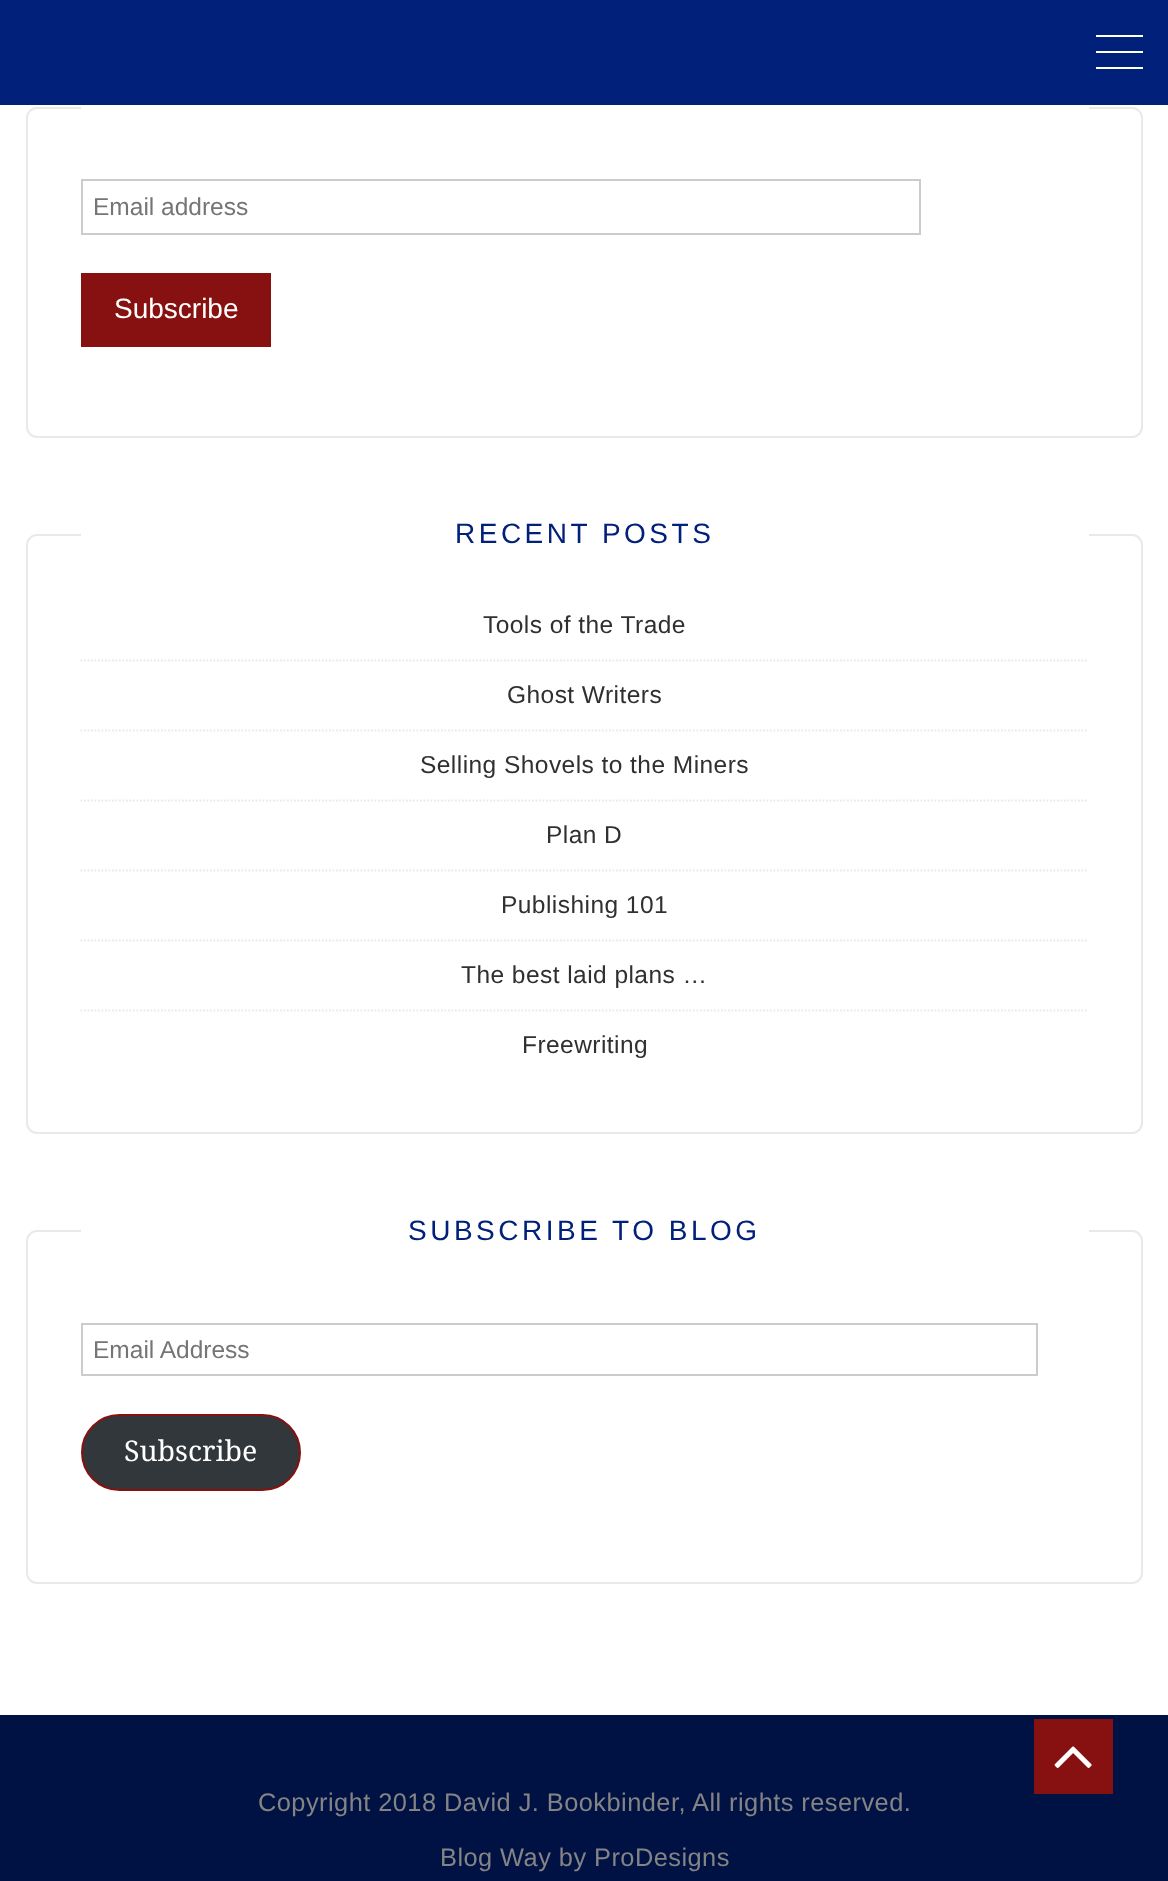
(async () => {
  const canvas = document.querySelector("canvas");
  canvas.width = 1168;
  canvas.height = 1881;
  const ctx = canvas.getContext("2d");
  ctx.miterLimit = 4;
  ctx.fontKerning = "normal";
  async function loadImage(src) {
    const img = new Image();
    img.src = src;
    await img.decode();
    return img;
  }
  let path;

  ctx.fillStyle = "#ffffff";
  ctx.fillRect(0, 0, 1168, 1881);
  for (const [x, y, w, h, color] of [
    [0, 0, 1168, 105, "#00207a"],
    [1096, 35, 47, 2, "#ffffff"],
    [1096, 51, 47, 2, "#ffffff"],
    [1096, 67, 47, 2, "#ffffff"],
  ]) {
    ctx.fillStyle = color;
    ctx.fillRect(x, y, w, h);
  }
  ctx.beginPath();
  ctx.roundRect(27, 108, 1115, 329, 10);
  ctx.strokeStyle = "#e9e9e9";
  ctx.lineWidth = 2;
  ctx.stroke();
  ctx.fillRect(81, 107, 1008, 2);
  ctx.strokeStyle = "#cccccc";
  ctx.strokeRect(82, 180, 838, 54);
  ctx.fillStyle = "#871111";
  ctx.fillRect(81, 273, 190, 74);
  ctx.beginPath();
  ctx.roundRect(27, 535, 1115, 598, 10);
  ctx.strokeStyle = "#e9e9e9";
  ctx.stroke();
  ctx.fillStyle = "#ffffff";
  ctx.fillRect(81, 534, 1008, 2);
  path = new Path2D("M80.5 660.5H1088.5");
  ctx.lineWidth = 1.8;
  ctx.setLineDash([1.75, 1.75]);
  ctx.stroke(path);
  path = new Path2D("M80.5 730.5H1088.5");
  ctx.stroke(path);
  path = new Path2D("M80.5 800.5H1088.5");
  ctx.stroke(path);
  path = new Path2D("M80.5 870.5H1088.5");
  ctx.stroke(path);
  path = new Path2D("M80.5 940.5H1088.5");
  ctx.stroke(path);
  path = new Path2D("M80.5 1010.5H1088.5");
  ctx.stroke(path);
  ctx.beginPath();
  ctx.roundRect(27, 1231, 1115, 352, 10);
  ctx.lineWidth = 2;
  ctx.setLineDash([]);
  ctx.stroke();
  ctx.fillRect(81, 1230, 1008, 2);
  ctx.strokeStyle = "#cccccc";
  ctx.strokeRect(82, 1324, 955, 51);
  ctx.fillStyle = "#32373c";
  ctx.beginPath();
  ctx.roundRect(82, 1415, 218, 75, 37.5);
  ctx.fill();
  ctx.strokeStyle = "#871111";
  ctx.stroke();
  ctx.fillStyle = "#001244";
  ctx.fillRect(0, 1715, 1168, 166);
  ctx.fillStyle = "#871111";
  ctx.fillRect(1034, 1719, 79, 75);
  ctx.drawImage(await loadImage("img/1.png"), 1054, 1746, 38, 22);
  ctx.font = "24.5px Liberation Sans";
  ctx.fillStyle = "#757575";
  ctx.fillText("Email address", 93, 215);
  ctx.font = "28px Liberation Sans";
  ctx.fillStyle = "#ffffff";
  ctx.fillText("Subscribe", 114, 318);
  ctx.letterSpacing = "3.5px";
  ctx.fillStyle = "#00207a";
  ctx.fillText("RECENT POSTS", 455, 543);
  ctx.letterSpacing = "0.45px";
  ctx.font = "24.5px Liberation Sans";
  ctx.fillStyle = "#303030";
  for (const [text, x, y] of [
    ["Tools of the Trade", 483, 633],
    ["Ghost Writers", 507, 703],
    ["Selling Shovels to the Miners", 420, 773],
    ["Plan D", 546, 843],
    ["Publishing 101", 501, 913],
    ["The best laid plans …", 461, 983],
    ["Freewriting", 522, 1053],
  ]) {
    ctx.fillText(text, x, y);
  }
  ctx.letterSpacing = "3.5px";
  ctx.font = "28px Liberation Sans";
  ctx.fillStyle = "#00207a";
  ctx.fillText("SUBSCRIBE TO BLOG", 408, 1240);
  ctx.letterSpacing = "0px";
  ctx.font = "24.5px Liberation Sans";
  ctx.fillStyle = "#757575";
  ctx.fillText("Email Address", 93, 1358);
  ctx.font = "28.5px Droid Serif";
  ctx.fillStyle = "#ffffff";
  ctx.fillText("Subscribe", 124, 1461);
  ctx.letterSpacing = "0.45px";
  ctx.font = "25.4px Liberation Sans";
  ctx.fillStyle = "#848484";
  ctx.fillText("Copyright 2018 David J. Bookbinder, All rights reserved.", 258, 1811);
  ctx.fillText("Blog Way by ProDesigns", 440, 1866);
})();
